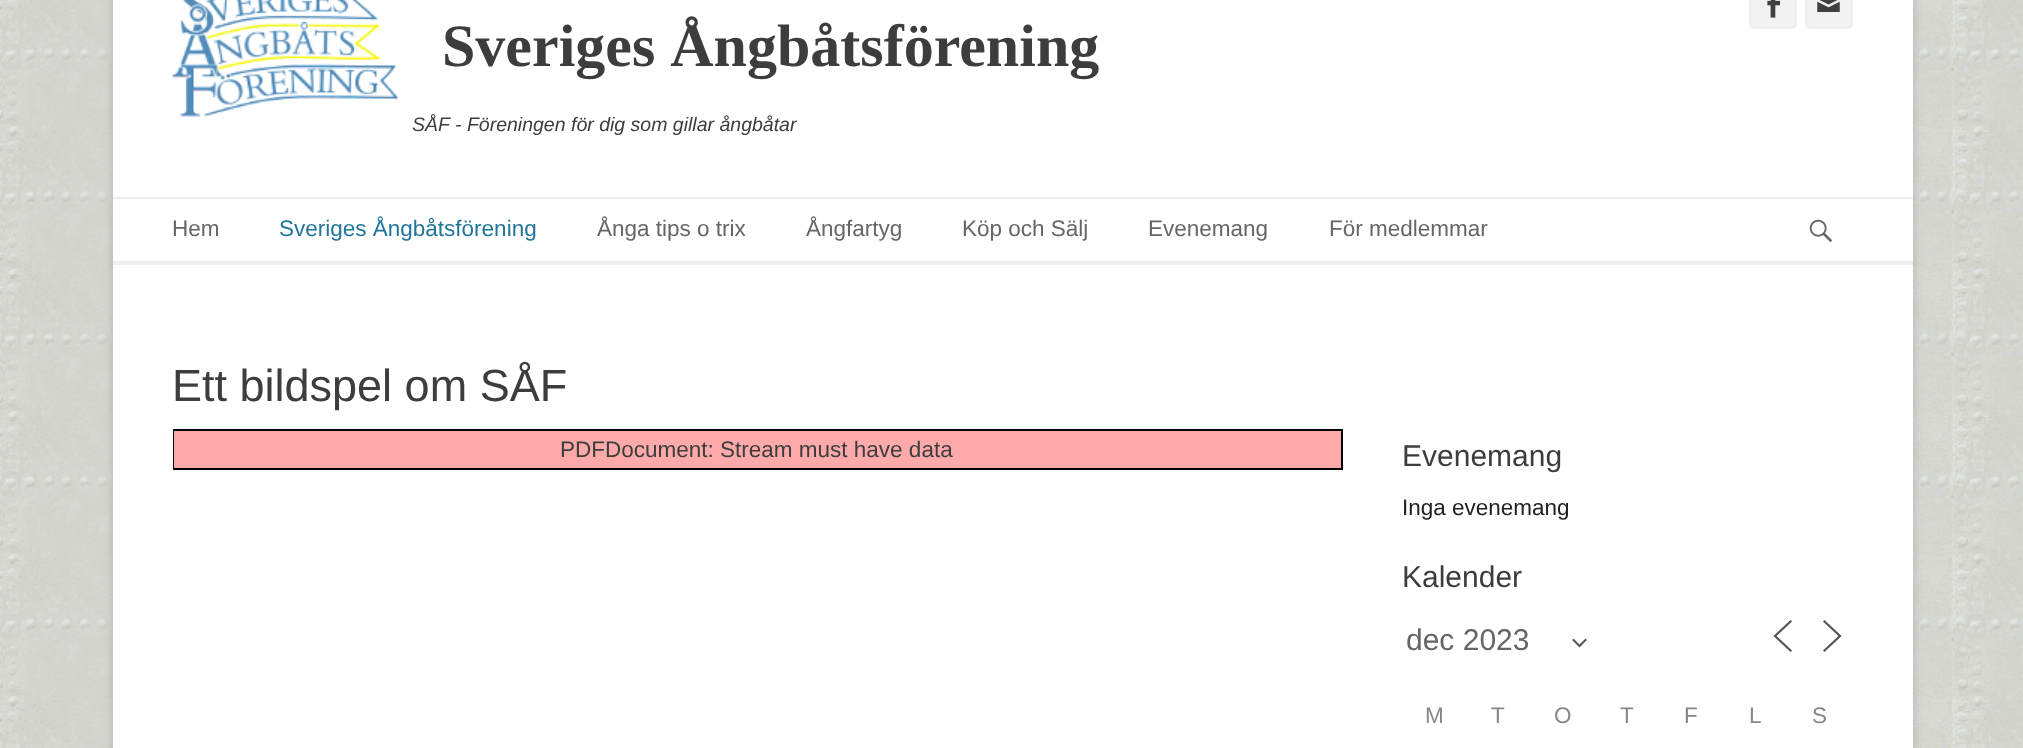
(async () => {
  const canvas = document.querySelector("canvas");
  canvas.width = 2023;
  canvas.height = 748;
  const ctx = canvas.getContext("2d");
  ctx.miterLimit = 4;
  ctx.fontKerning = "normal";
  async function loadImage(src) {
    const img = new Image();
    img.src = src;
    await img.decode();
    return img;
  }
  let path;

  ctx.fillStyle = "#ffffff";
  ctx.fillRect(0, 0, 2023, 748);
  ctx.drawImage(await loadImage("img/1.png"), 0, 0, 2023, 748);
  ctx.fillStyle = "rgba(100, 100, 100, 0.3)";
  ctx.filter = "blur(4.5px)";
  ctx.beginPath();
  ctx.roundRect(113, -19, 1800, 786, 5);
  ctx.fill();
  ctx.filter = "none";
  ctx.fillStyle = "#ffffff";
  ctx.fillRect(113, 0, 1800, 748);
  ctx.fillStyle = "#f2f2f2";
  ctx.beginPath();
  ctx.roundRect(1750, -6, 46, 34, 4);
  ctx.fill();
  ctx.strokeStyle = "#eeeeee";
  ctx.lineWidth = 2;
  ctx.stroke();
  ctx.drawImage(await loadImage("img/2.png"), 1767, 0, 14, 18);
  ctx.beginPath();
  ctx.roundRect(1806, -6, 46, 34, 4);
  ctx.fill();
  ctx.stroke();
  ctx.drawImage(await loadImage("img/3.png"), 1817, 0, 23, 12);
  ctx.drawImage(await loadImage("img/4.png"), 172, 0, 226, 117);
  ctx.fillStyle = "#eeeeee";
  ctx.fillRect(113, 197, 1800, 2);
  ctx.drawImage(await loadImage("img/5.png"), 1809, 219, 24, 24);
  ctx.fillRect(113, 261, 1800, 4);
  ctx.strokeStyle = "#000000";
  ctx.strokeRect(174, 430, 1168, 39);
  ctx.fillStyle = "#ffaaaa";
  ctx.fillRect(174, 431, 1167, 37);
  path = new Path2D("M1573.5 640L1579.5 646L1585.5 640");
  ctx.strokeStyle = "#555555";
  ctx.lineCap = "square";
  ctx.stroke(path);
  path = new Path2D("M1790.5 650.5L1775 636L1790.5 621.5");
  ctx.lineWidth = 2.2;
  ctx.stroke(path);
  path = new Path2D("M1824.5 650.5L1840 636L1824.5 621.5");
  ctx.stroke(path);
  ctx.font = "bold 60px Liberation Serif";
  ctx.fillStyle = "#3d3d3d";
  ctx.fillText("Sveriges Ångbåtsförening", 442, 66);
  ctx.font = "italic 19.5px Liberation Sans";
  ctx.fillText("SÅF - Föreningen för dig som gillar ångbåtar", 412, 131);
  ctx.font = "22.5px Liberation Sans";
  ctx.fillStyle = "#666666";
  ctx.fillText("Hem", 172, 236);
  ctx.fillStyle = "#21759b";
  ctx.fillText("Sveriges Ångbåtsförening", 279, 236);
  ctx.fillStyle = "#666666";
  for (const [text, x, y] of [
    ["Ånga tips o trix", 597, 236],
    ["Ångfartyg", 806, 236],
    ["Köp och Sälj", 962, 236],
    ["Evenemang", 1148, 236],
    ["För medlemmar", 1329, 236],
  ]) {
    ctx.fillText(text, x, y);
  }
  ctx.font = "45px Liberation Sans";
  ctx.fillStyle = "#3d3d3d";
  ctx.fillText("Ett bildspel om SÅF", 172, 401);
  ctx.font = "22.5px Liberation Sans";
  ctx.fillText("PDFDocument: Stream must have data", 560, 457);
  ctx.font = "30px Liberation Sans";
  ctx.fillText("Evenemang", 1402, 466);
  ctx.font = "22.5px Liberation Sans";
  ctx.fillStyle = "#212121";
  ctx.fillText("Inga evenemang", 1402, 515);
  ctx.font = "30px Liberation Sans";
  ctx.fillStyle = "#3d3d3d";
  ctx.fillText("Kalender", 1402, 587);
  ctx.fillStyle = "#666666";
  ctx.fillText("dec 2023", 1406, 650);
  ctx.font = "22.5px Liberation Sans";
  ctx.fillStyle = "#888888";
  for (const [text, x, y] of [
    ["M", 1425, 723],
    ["T", 1491, 723],
    ["O", 1554, 723],
    ["T", 1620, 723],
    ["F", 1684, 723],
    ["L", 1749, 723],
    ["S", 1812, 723],
  ]) {
    ctx.fillText(text, x, y);
  }
})();
